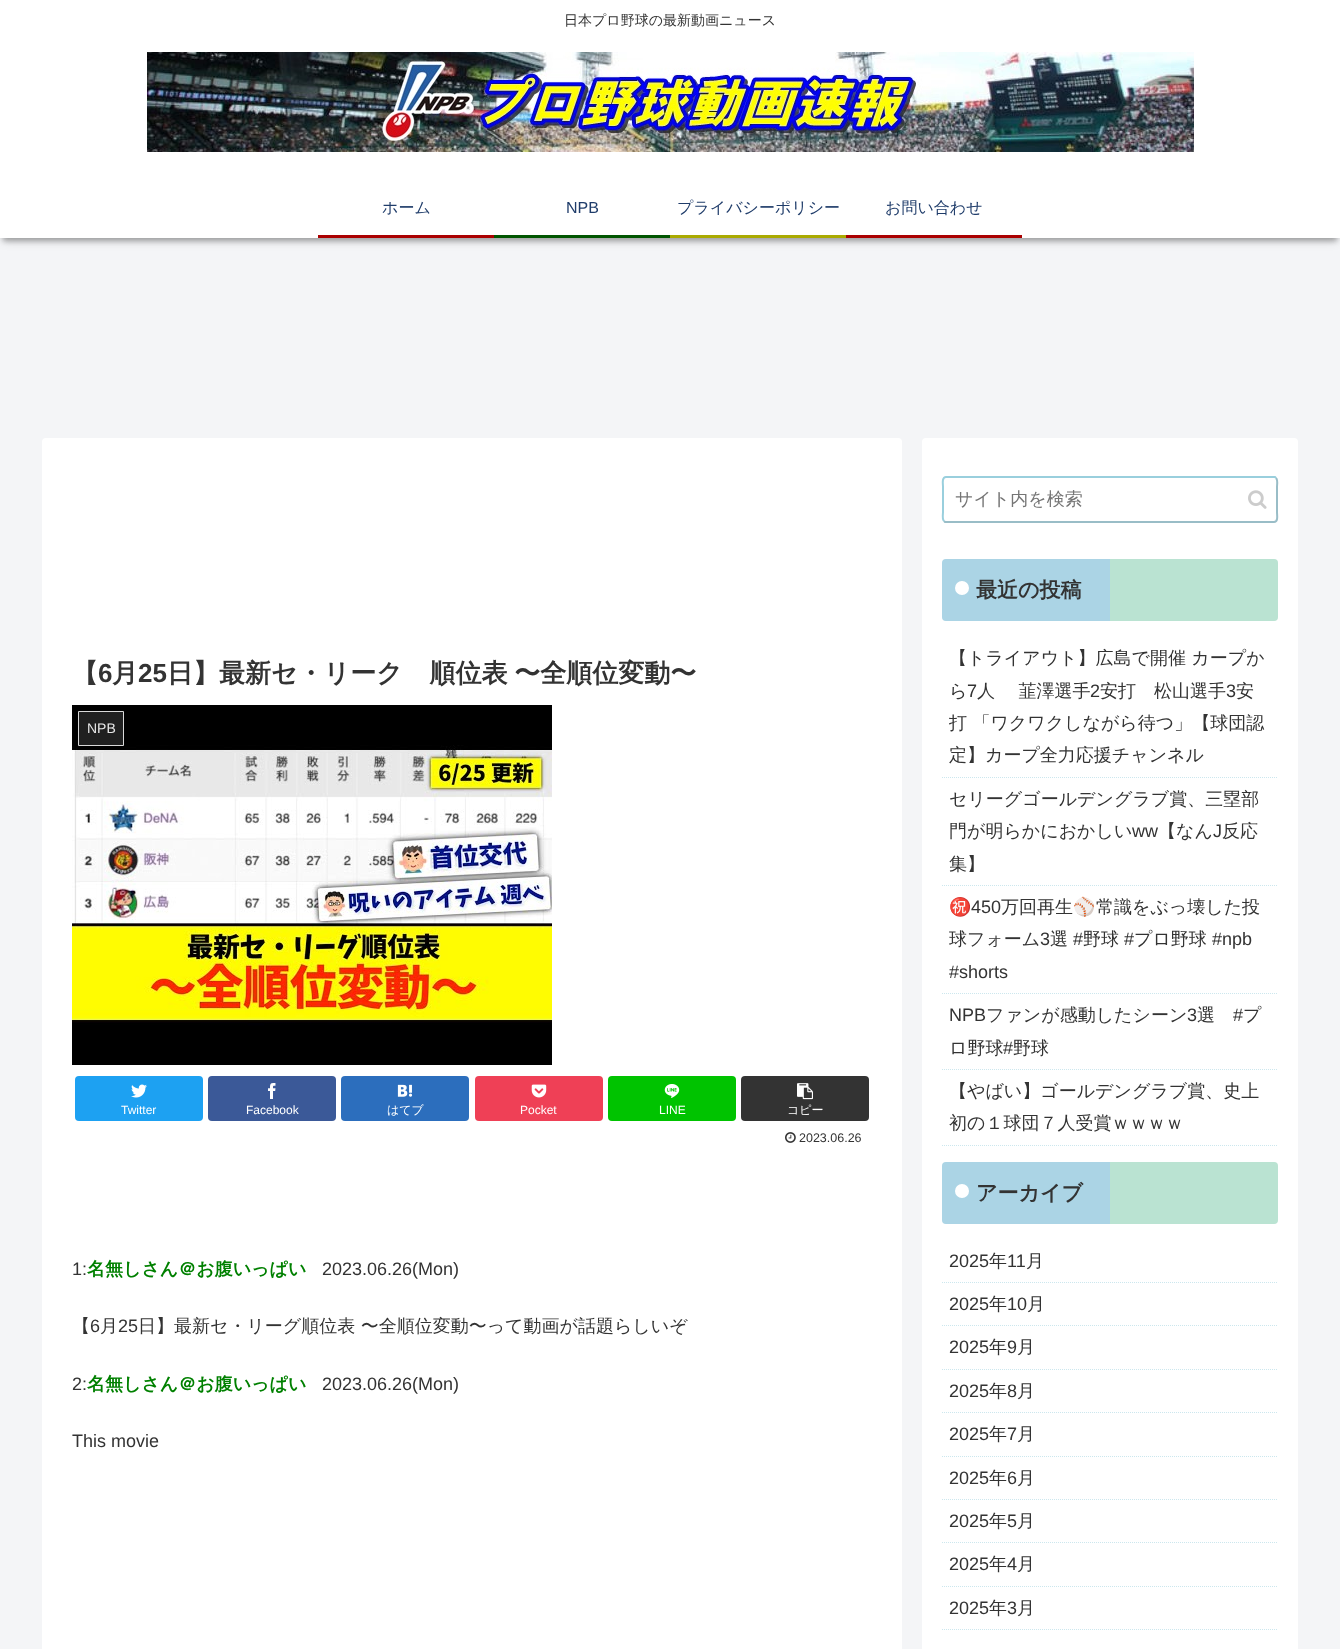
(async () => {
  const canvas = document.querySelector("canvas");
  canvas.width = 1340;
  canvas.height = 1649;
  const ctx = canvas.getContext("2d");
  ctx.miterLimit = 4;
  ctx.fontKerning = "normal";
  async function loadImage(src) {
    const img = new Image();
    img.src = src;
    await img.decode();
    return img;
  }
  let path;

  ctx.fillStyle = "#f4f5f7";
  ctx.fillRect(0, 0, 1340, 1649);
  ctx.fillStyle = "rgba(0, 0, 0, 0.18)";
  ctx.filter = "blur(5px)";
  ctx.beginPath();
  ctx.rect(3, 9, 1334, 232);
  ctx.fill();
  ctx.filter = "none";
  ctx.fillStyle = "rgba(0, 0, 0, 0.24)";
  ctx.filter = "blur(2.5px)";
  ctx.beginPath();
  ctx.rect(3, 9, 1334, 232);
  ctx.fill();
  ctx.filter = "none";
  ctx.fillStyle = "#ffffff";
  ctx.fillRect(0, 0, 1340, 238);
  ctx.drawImage(await loadImage("img/1.png"), 147, 52, 1047, 100);
  for (const [x, y, w, h, color] of [
    [318, 235, 176, 3, "#aa0000"],
    [494, 235, 176, 3, "#005500"],
    [670, 235, 176, 3, "#aaaa00"],
    [846, 235, 176, 3, "#aa0000"],
  ]) {
    ctx.fillStyle = color;
    ctx.fillRect(x, y, w, h);
  }
  ctx.fillStyle = "#ffffff";
  ctx.beginPath();
  ctx.roundRect(42, 438, 860, 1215, 4);
  ctx.fill();
  ctx.drawImage(await loadImage("img/2.png"), 72, 705, 480, 360);
  ctx.fillStyle = "rgba(51, 51, 51, 0.63)";
  ctx.beginPath();
  ctx.rect(78.5, 711.5, 45, 34);
  ctx.fill();
  ctx.strokeStyle = "#d9d9d9";
  ctx.stroke();
  ctx.fillStyle = "#1da1f2";
  ctx.beginPath();
  ctx.roundRect(75, 1076, 128, 45, 4);
  ctx.fill();
  ctx.drawImage(await loadImage("img/3.png"), 131, 1084, 16, 14);
  ctx.fillStyle = "#3b5998";
  ctx.beginPath();
  ctx.roundRect(208, 1076, 128, 45, 4);
  ctx.fill();
  ctx.drawImage(await loadImage("img/4.png"), 268, 1083, 8, 16);
  ctx.fillStyle = "#2c6ebd";
  ctx.beginPath();
  ctx.roundRect(341, 1076, 128, 45, 4);
  ctx.fill();
  ctx.drawImage(await loadImage("img/5.png"), 397, 1084, 16, 13);
  ctx.fillStyle = "#ef4056";
  ctx.beginPath();
  ctx.roundRect(475, 1076, 128, 45, 4);
  ctx.fill();
  ctx.drawImage(await loadImage("img/6.png"), 531, 1084, 16, 14);
  ctx.fillStyle = "#00c300";
  ctx.beginPath();
  ctx.roundRect(608, 1076, 128, 45, 4);
  ctx.fill();
  ctx.drawImage(await loadImage("img/7.png"), 664, 1084, 16, 14);
  ctx.fillStyle = "#333333";
  ctx.beginPath();
  ctx.roundRect(741, 1076, 128, 45, 4);
  ctx.fill();
  ctx.drawImage(await loadImage("img/8.png"), 797, 1083, 16, 17);
  ctx.drawImage(await loadImage("img/9.png"), 785, 1132, 11, 11);
  ctx.fillStyle = "#ffffff";
  ctx.beginPath();
  ctx.roundRect(922, 438, 376, 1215, 4);
  ctx.fill();
  path = new Path2D("M1276 478C1278 480 1277 485.5 1277 486.5V512.5C1277 514.5 1278.5 522 1274 522H945L944 521");
  ctx.strokeStyle = "#99bdc7";
  ctx.lineWidth = 2;
  ctx.stroke(path);
  path = new Path2D("M944 521C942 519 943 513.5 943 512.5V486.5C943 484.5 941.5 477 946 477H1275L1276 478");
  ctx.strokeStyle = "#99cfdd";
  ctx.stroke(path);
  ctx.drawImage(await loadImage("img/10.png"), 1248, 490, 19, 19);
  ctx.fillStyle = "#f3f4f5";
  ctx.beginPath();
  ctx.roundRect(942, 559, 336, 62, 4);
  ctx.fill();
  ctx.fillStyle = "rgba(8, 140, 192, 0.3)";
  ctx.beginPath();
  ctx.roundRect(942, 559, 168, 62, [4, 0, 0, 4]);
  ctx.fill();
  ctx.fillStyle = "rgba(57, 188, 128, 0.3)";
  ctx.beginPath();
  ctx.roundRect(1110, 559, 168, 62, [0, 4, 4, 0]);
  ctx.fill();
  ctx.fillStyle = "#ffffff";
  ctx.beginPath();
  ctx.arc(962, 588, 7, 0, Math.PI * 2);
  ctx.fill();
  path = new Path2D("M942 777.5H1278");
  ctx.strokeStyle = "#cce7ee";
  ctx.lineWidth = 1;
  ctx.setLineDash([1, 1]);
  ctx.stroke(path);
  path = new Path2D("M942 885.5H1278");
  ctx.stroke(path);
  path = new Path2D("M942 993.5H1278");
  ctx.stroke(path);
  path = new Path2D("M942 1069.5H1278");
  ctx.stroke(path);
  path = new Path2D("M942 1145.5H1278");
  ctx.stroke(path);
  ctx.fillStyle = "#f3f4f5";
  ctx.beginPath();
  ctx.roundRect(942, 1162, 336, 62, 4);
  ctx.fill();
  ctx.fillStyle = "rgba(8, 140, 192, 0.3)";
  ctx.beginPath();
  ctx.roundRect(942, 1162, 168, 62, [4, 0, 0, 4]);
  ctx.fill();
  ctx.fillStyle = "rgba(57, 188, 128, 0.3)";
  ctx.beginPath();
  ctx.roundRect(1110, 1162, 168, 62, [0, 4, 4, 0]);
  ctx.fill();
  ctx.fillStyle = "#ffffff";
  ctx.beginPath();
  ctx.arc(962, 1191, 7, 0, Math.PI * 2);
  ctx.fill();
  path = new Path2D("M942 1282.5H1278");
  ctx.stroke(path);
  path = new Path2D("M942 1325.5H1278");
  ctx.stroke(path);
  path = new Path2D("M942 1369.5H1278");
  ctx.stroke(path);
  path = new Path2D("M942 1412.5H1278");
  ctx.stroke(path);
  path = new Path2D("M942 1456.5H1278");
  ctx.stroke(path);
  path = new Path2D("M942 1499.5H1278");
  ctx.stroke(path);
  path = new Path2D("M942 1542.5H1278");
  ctx.stroke(path);
  path = new Path2D("M942 1586.5H1278");
  ctx.stroke(path);
  path = new Path2D("M942 1629.5H1278");
  ctx.stroke(path);
  ctx.font = "500 14px WenQuanYi Zen Hei";
  ctx.fillStyle = "#333333";
  ctx.fillText("日本プロ野球の最新動画ニュース", 564, 25);
  ctx.font = "500 16px WenQuanYi Zen Hei";
  ctx.fillStyle = "#1f3c6a";
  ctx.fillText("ホーム", 382, 213);
  ctx.font = "16px Liberation Sans";
  ctx.fillText("NPB", 566, 213);
  ctx.font = "500 16px WenQuanYi Zen Hei";
  ctx.fillText("プライバシーポリシー", 677, 213);
  ctx.fillText("お問い合わせ", 885, 213);
  ctx.font = "bold 26px WenQuanYi Zen Hei";
  ctx.fillStyle = "#333333";
  ctx.fillText("【", 72, 682);
  ctx.font = "bold 26px Liberation Sans";
  ctx.fillText("6", 98, 682);
  ctx.font = "bold 26px WenQuanYi Zen Hei";
  ctx.fillText("月", 112, 682);
  ctx.font = "bold 26px Liberation Sans";
  ctx.fillText("25", 138, 682);
  ctx.wordSpacing = "-1px";
  ctx.font = "bold 26px WenQuanYi Zen Hei";
  ctx.fillText("日】最新セ・リーグ順位表 〜全順位変動〜", 167, 682);
  ctx.wordSpacing = "0px";
  ctx.font = "14px Liberation Sans";
  ctx.fillStyle = "#e6e6e6";
  ctx.fillText("NPB", 87, 733);
  ctx.font = "12px Liberation Sans";
  ctx.fillStyle = "#ffffff";
  ctx.fillText("Twitter", 121, 1114);
  ctx.fillText("Facebook", 246, 1114);
  ctx.font = "500 12px WenQuanYi Zen Hei";
  ctx.fillText("はてブ", 387, 1114);
  ctx.font = "12px Liberation Sans";
  ctx.fillText("Pocket", 520, 1114);
  ctx.fillText("LINE", 659, 1114);
  ctx.font = "500 12px WenQuanYi Zen Hei";
  ctx.fillText("コピー", 787, 1114);
  ctx.font = "12.5px Liberation Sans";
  ctx.fillStyle = "#333333";
  ctx.fillText("2023.06.26", 799, 1142);
  ctx.font = "18px Liberation Sans";
  ctx.fillText("1:", 72, 1275);
  ctx.font = "bold 18px WenQuanYi Zen Hei";
  ctx.fillStyle = "#008000";
  ctx.fillText("名無しさん＠お腹いっぱい", 87, 1275);
  ctx.font = "18px Liberation Sans";
  ctx.fillStyle = "#333333";
  ctx.fillText("2023.06.26(Mon)", 322, 1275);
  ctx.font = "500 18px WenQuanYi Zen Hei";
  ctx.fillText("【", 72, 1332);
  ctx.font = "18px Liberation Sans";
  ctx.fillText("6", 90, 1332);
  ctx.font = "500 18px WenQuanYi Zen Hei";
  ctx.fillText("月", 100, 1332);
  ctx.font = "18px Liberation Sans";
  ctx.fillText("25", 118, 1332);
  ctx.font = "500 18px WenQuanYi Zen Hei";
  ctx.fillText("日】最新セ・リーグ順位表 〜全順位変動〜って動画が話題らしいぞ", 138, 1332);
  ctx.font = "18px Liberation Sans";
  ctx.fillText("2:", 72, 1390);
  ctx.font = "bold 18px WenQuanYi Zen Hei";
  ctx.fillStyle = "#008000";
  ctx.fillText("名無しさん＠お腹いっぱい", 87, 1390);
  ctx.font = "18px Liberation Sans";
  ctx.fillStyle = "#333333";
  ctx.fillText("2023.06.26(Mon)", 322, 1390);
  ctx.fillText("This movie", 72, 1447);
  ctx.font = "500 18px WenQuanYi Zen Hei";
  ctx.fillStyle = "#757575";
  ctx.fillText("サイト内を検索", 955, 505);
  ctx.font = "bold 21px WenQuanYi Zen Hei";
  ctx.fillStyle = "#333333";
  ctx.fillText("最近の投稿", 976, 597);
  ctx.font = "500 18px WenQuanYi Zen Hei";
  ctx.fillText("【トライアウト】広島で開催 カープか", 949, 664);
  ctx.fillText("ら", 949, 697);
  ctx.font = "18px Liberation Sans";
  ctx.fillText("7", 967, 697);
  ctx.font = "500 18px WenQuanYi Zen Hei";
  ctx.fillText("人　 韮澤選手", 977, 697);
  ctx.font = "18px Liberation Sans";
  ctx.fillText("2", 1090, 697);
  ctx.font = "500 18px WenQuanYi Zen Hei";
  ctx.fillText("安打　松山選手", 1100, 697);
  ctx.font = "18px Liberation Sans";
  ctx.fillText("3", 1226, 697);
  ctx.font = "500 18px WenQuanYi Zen Hei";
  for (const [text, x, y] of [
    ["安", 1236, 697],
    ["打 「ワクワクしながら待つ」【球団認", 949, 729],
    ["定】カープ全力応援チャンネル", 949, 761],
    ["セリーグゴールデングラブ賞、三塁部", 949, 805],
    ["門が明らかにおかしい", 949, 837],
  ]) {
    ctx.fillText(text, x, y);
  }
  ctx.font = "18px Liberation Sans";
  ctx.fillText("ww", 1132, 837);
  ctx.font = "500 18px WenQuanYi Zen Hei";
  ctx.fillText("【なん", 1158, 837);
  ctx.font = "18px Liberation Sans";
  ctx.fillText("J", 1213, 837);
  ctx.font = "500 18px WenQuanYi Zen Hei";
  ctx.fillText("反応", 1222, 837);
  ctx.fillText("集】", 949, 870);
  ctx.font = "18px Noto Color Emoji";
  ctx.fillText("㊗️", 949, 913);
  ctx.font = "18px Liberation Sans";
  ctx.fillText("450", 971, 913);
  ctx.font = "500 18px WenQuanYi Zen Hei";
  ctx.fillText("万回再生", 1001, 913);
  ctx.font = "18px Noto Color Emoji";
  ctx.fillText("⚾️", 1073, 913);
  ctx.font = "500 18px WenQuanYi Zen Hei";
  ctx.fillText("常識をぶっ壊した投", 1096, 913);
  ctx.fillText("球フォーム", 949, 945);
  ctx.font = "18px Liberation Sans";
  ctx.fillText("3", 1040, 945);
  ctx.font = "500 18px WenQuanYi Zen Hei";
  ctx.fillText("選", 1050, 945);
  ctx.font = "18px Liberation Sans";
  ctx.fillText("#", 1073, 945);
  ctx.font = "500 18px WenQuanYi Zen Hei";
  ctx.fillText("野球", 1083, 945);
  ctx.font = "18px Liberation Sans";
  ctx.fillText("#", 1124, 945);
  ctx.font = "500 18px WenQuanYi Zen Hei";
  ctx.fillText("プロ野球", 1134, 945);
  ctx.font = "18px Liberation Sans";
  for (const [text, x, y] of [
    ["#npb", 1212, 945],
    ["#shorts", 949, 978],
    ["NPB", 949, 1021],
  ]) {
    ctx.fillText(text, x, y);
  }
  ctx.font = "500 18px WenQuanYi Zen Hei";
  ctx.fillText("ファンが感動したシーン", 986, 1021);
  ctx.font = "18px Liberation Sans";
  ctx.fillText("3", 1187, 1021);
  ctx.font = "500 18px WenQuanYi Zen Hei";
  ctx.fillText("選", 1197, 1021);
  ctx.font = "18px Liberation Sans";
  ctx.fillText("#", 1233, 1021);
  ctx.font = "500 18px WenQuanYi Zen Hei";
  ctx.fillText("プ", 1243, 1021);
  ctx.fillText("ロ野球", 949, 1054);
  ctx.font = "18px Liberation Sans";
  ctx.fillText("#", 1003, 1054);
  ctx.font = "500 18px WenQuanYi Zen Hei";
  for (const [text, x, y] of [
    ["野球", 1013, 1054],
    ["【やばい】ゴールデングラブ賞、史上", 949, 1097],
    ["初の１球団７人受賞ｗｗｗｗ", 949, 1129],
  ]) {
    ctx.fillText(text, x, y);
  }
  ctx.font = "bold 21px WenQuanYi Zen Hei";
  ctx.fillText("アーカイブ", 976, 1200);
  ctx.font = "18px Liberation Sans";
  ctx.fillText("2025", 949, 1267);
  ctx.font = "500 18px WenQuanYi Zen Hei";
  ctx.fillText("年", 989, 1267);
  ctx.font = "18px Liberation Sans";
  ctx.fillText("11", 1007, 1267);
  ctx.font = "500 18px WenQuanYi Zen Hei";
  ctx.fillText("月", 1026, 1267);
  ctx.font = "18px Liberation Sans";
  ctx.fillText("2025", 949, 1310);
  ctx.font = "500 18px WenQuanYi Zen Hei";
  ctx.fillText("年", 989, 1310);
  ctx.font = "18px Liberation Sans";
  ctx.fillText("10", 1007, 1310);
  ctx.font = "500 18px WenQuanYi Zen Hei";
  ctx.fillText("月", 1027, 1310);
  ctx.font = "18px Liberation Sans";
  ctx.fillText("2025", 949, 1353);
  ctx.font = "500 18px WenQuanYi Zen Hei";
  ctx.fillText("年", 989, 1353);
  ctx.font = "18px Liberation Sans";
  ctx.fillText("9", 1007, 1353);
  ctx.font = "500 18px WenQuanYi Zen Hei";
  ctx.fillText("月", 1017, 1353);
  ctx.font = "18px Liberation Sans";
  ctx.fillText("2025", 949, 1397);
  ctx.font = "500 18px WenQuanYi Zen Hei";
  ctx.fillText("年", 989, 1397);
  ctx.font = "18px Liberation Sans";
  ctx.fillText("8", 1007, 1397);
  ctx.font = "500 18px WenQuanYi Zen Hei";
  ctx.fillText("月", 1017, 1397);
  ctx.font = "18px Liberation Sans";
  ctx.fillText("2025", 949, 1440);
  ctx.font = "500 18px WenQuanYi Zen Hei";
  ctx.fillText("年", 989, 1440);
  ctx.font = "18px Liberation Sans";
  ctx.fillText("7", 1007, 1440);
  ctx.font = "500 18px WenQuanYi Zen Hei";
  ctx.fillText("月", 1017, 1440);
  ctx.font = "18px Liberation Sans";
  ctx.fillText("2025", 949, 1484);
  ctx.font = "500 18px WenQuanYi Zen Hei";
  ctx.fillText("年", 989, 1484);
  ctx.font = "18px Liberation Sans";
  ctx.fillText("6", 1007, 1484);
  ctx.font = "500 18px WenQuanYi Zen Hei";
  ctx.fillText("月", 1017, 1484);
  ctx.font = "18px Liberation Sans";
  ctx.fillText("2025", 949, 1527);
  ctx.font = "500 18px WenQuanYi Zen Hei";
  ctx.fillText("年", 989, 1527);
  ctx.font = "18px Liberation Sans";
  ctx.fillText("5", 1007, 1527);
  ctx.font = "500 18px WenQuanYi Zen Hei";
  ctx.fillText("月", 1017, 1527);
  ctx.font = "18px Liberation Sans";
  ctx.fillText("2025", 949, 1570);
  ctx.font = "500 18px WenQuanYi Zen Hei";
  ctx.fillText("年", 989, 1570);
  ctx.font = "18px Liberation Sans";
  ctx.fillText("4", 1007, 1570);
  ctx.font = "500 18px WenQuanYi Zen Hei";
  ctx.fillText("月", 1017, 1570);
  ctx.font = "18px Liberation Sans";
  ctx.fillText("2025", 949, 1614);
  ctx.font = "500 18px WenQuanYi Zen Hei";
  ctx.fillText("年", 989, 1614);
  ctx.font = "18px Liberation Sans";
  ctx.fillText("3", 1007, 1614);
  ctx.font = "500 18px WenQuanYi Zen Hei";
  ctx.fillText("月", 1017, 1614);
})();
